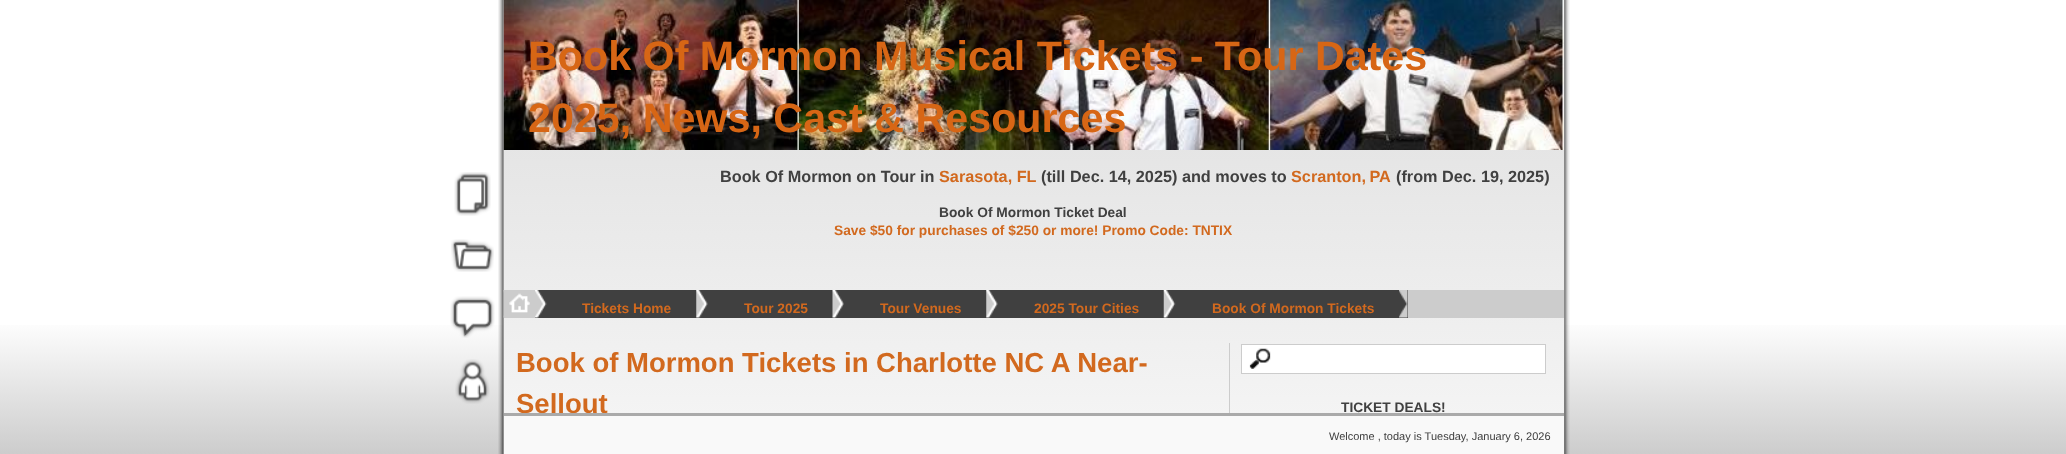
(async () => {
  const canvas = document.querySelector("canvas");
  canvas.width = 2066;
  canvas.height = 454;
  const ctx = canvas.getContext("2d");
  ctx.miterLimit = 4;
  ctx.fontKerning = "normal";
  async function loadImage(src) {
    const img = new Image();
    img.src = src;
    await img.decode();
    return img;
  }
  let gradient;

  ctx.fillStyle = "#ffffff";
  ctx.fillRect(0, 0, 2066, 454);
  gradient = ctx.createLinearGradient(1033, 0, 1033, 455);
  gradient.addColorStop(0.7, "#ffffff");
  gradient.addColorStop(1, "#cccccc");
  ctx.fillStyle = gradient;
  ctx.fillRect(0, 325, 2066, 129);
  ctx.drawImage(await loadImage("img/1.png"), 498, 0, 1072, 454);
  gradient = ctx.createLinearGradient(1034, 0, 1034, 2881);
  gradient.addColorStop(0, "#dddddd");
  gradient.addColorStop(0.17, "#f8f8f8");
  ctx.fillStyle = gradient;
  ctx.fillRect(504, 0, 1060, 413);
  ctx.drawImage(await loadImage("img/2.png"), 503, 0, 1061, 150);
  ctx.fillStyle = "#cccccc";
  ctx.fillRect(1408, 290, 156, 28);
  ctx.fillStyle = "#404040";
  ctx.fillRect(535, 290, 873, 28);
  ctx.drawImage(await loadImage("img/3.png"), 1399, 290, 9, 28);
  ctx.drawImage(await loadImage("img/4.png"), 503, 290, 1, 28);
  ctx.fillStyle = "#cccccc";
  ctx.fillRect(504, 290, 31, 28);
  ctx.drawImage(await loadImage("img/5.png"), 509, 293, 21, 20);
  ctx.drawImage(await loadImage("img/6.png"), 535, 290, 12, 28);
  ctx.drawImage(await loadImage("img/7.png"), 696, 290, 12, 28);
  ctx.drawImage(await loadImage("img/8.png"), 832, 290, 12, 28);
  ctx.drawImage(await loadImage("img/7.png"), 986, 290, 12, 28);
  ctx.drawImage(await loadImage("img/9.png"), 1163, 290, 13, 28);
  ctx.fillRect(1229, 343, 1, 70);
  ctx.fillStyle = "#ffffff";
  ctx.fillRect(1242, 345, 303, 28);
  ctx.drawImage(await loadImage("img/10.png"), 1249, 348, 22, 21);
  ctx.strokeStyle = "#cccccc";
  ctx.strokeRect(1241.5, 344.5, 304, 29);
  ctx.drawImage(await loadImage("img/11.png"), 454, 172, 37, 44);
  ctx.drawImage(await loadImage("img/12.png"), 451, 239, 43, 33);
  ctx.drawImage(await loadImage("img/13.png"), 450, 296, 45, 42);
  ctx.drawImage(await loadImage("img/14.png"), 455, 359, 35, 45);
  ctx.fillStyle = "#f9f9f9";
  ctx.fillRect(504, 416, 1060, 38);
  ctx.font = "bold 41.25px Liberation Sans";
  ctx.fillStyle = "#d76615";
  ctx.fillText("Book Of Mormon Musical Tickets - Tour Dates", 528, 70);
  ctx.fillText("2025, News, Cast & Resources", 528, 132);
  ctx.font = "bold 16.25px Liberation Sans";
  ctx.fillStyle = "#404040";
  ctx.fillText("Book Of Mormon on Tour in", 720, 182);
  ctx.fillStyle = "#d2691e";
  ctx.fillText("Sarasota, FL", 939, 182);
  ctx.fillStyle = "#404040";
  ctx.fillText("(till Dec. 14, 2025) and moves to", 1041, 182);
  ctx.wordSpacing = "-1px";
  ctx.fillStyle = "#d2691e";
  ctx.fillText("Scranton, PA", 1291, 182);
  ctx.wordSpacing = "0px";
  ctx.fillStyle = "#404040";
  ctx.fillText("(from Dec. 19, 2025)", 1396, 182);
  ctx.font = "bold 13.75px Liberation Sans";
  ctx.fillText("Book Of Mormon Ticket Deal", 939, 217);
  ctx.fillStyle = "#d2691e";
  for (const [text, x, y] of [
    ["Save $50 for purchases of $250 or more! Promo Code: TNTIX", 834, 235],
    ["Tickets Home", 582, 313],
    ["Tour 2025", 744, 313],
    ["Tour Venues", 880, 313],
    ["2025 Tour Cities", 1034, 313],
    ["Book Of Mormon Tickets", 1212, 313],
  ]) {
    ctx.fillText(text, x, y);
  }
  ctx.font = "bold 27.5px Liberation Sans";
  ctx.fillText("Book of Mormon Tickets in Charlotte NC A Near-", 516, 372);
  ctx.fillText("Sellout", 516, 413);
  ctx.font = "bold 13.75px Liberation Sans";
  ctx.fillStyle = "#404040";
  ctx.fillText("TICKET DEALS!", 1341, 412);
  ctx.fillStyle = "#aaaaaa";
  ctx.fillRect(504, 413, 1060, 3);
  ctx.font = "11px Liberation Sans";
  ctx.fillStyle = "#404040";
  ctx.fillText("Welcome , today is Tuesday, January 6, 2026", 1329, 440);
})();
